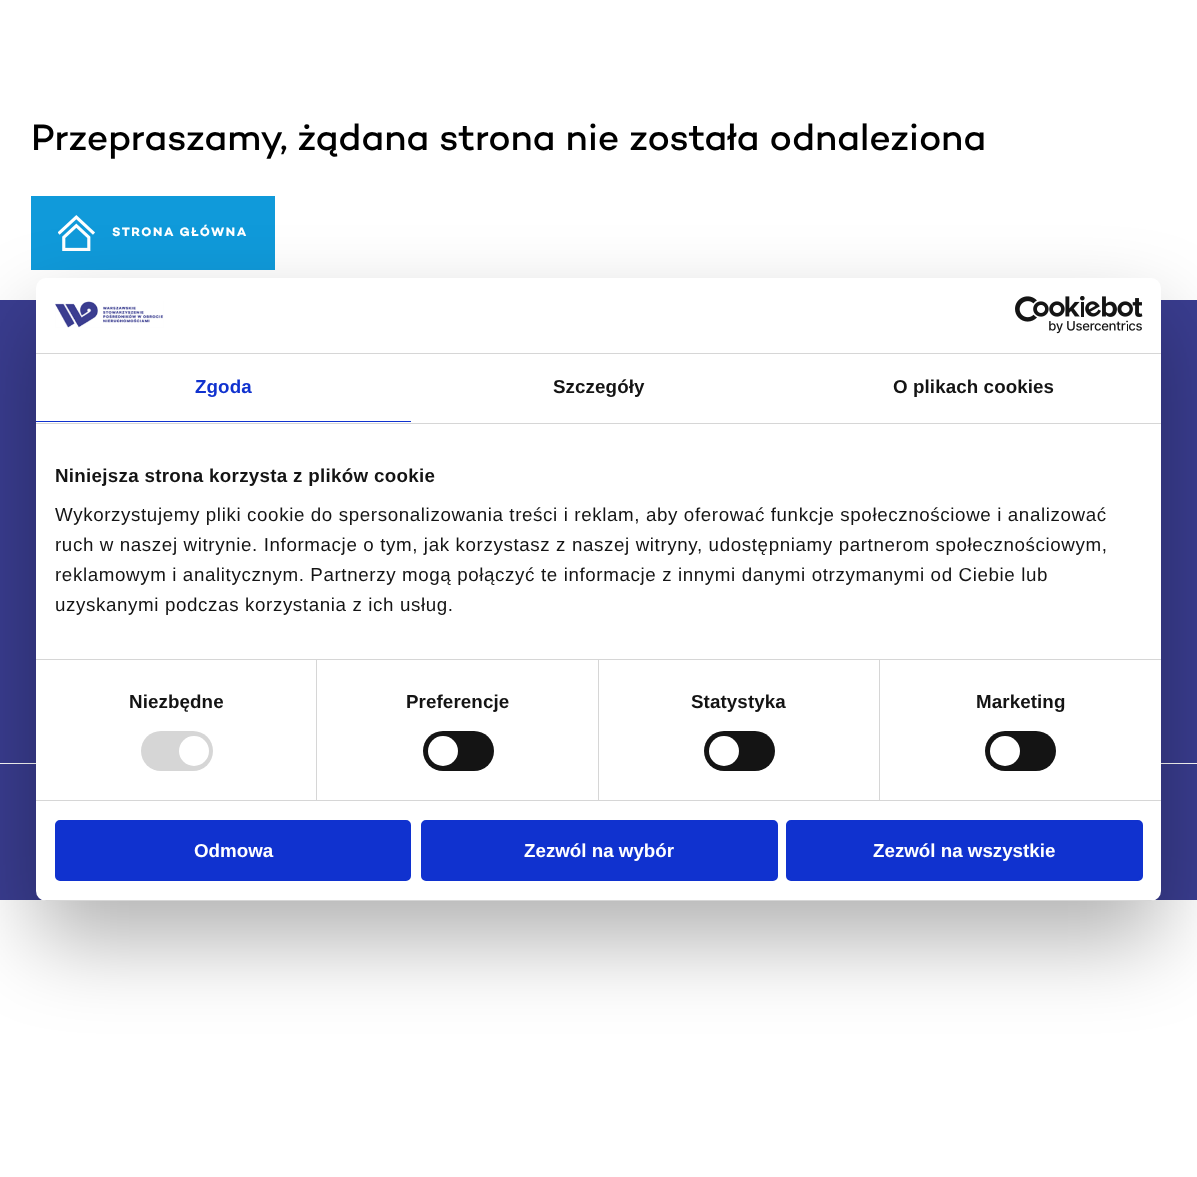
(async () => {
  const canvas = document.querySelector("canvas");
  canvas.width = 1197;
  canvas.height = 1177;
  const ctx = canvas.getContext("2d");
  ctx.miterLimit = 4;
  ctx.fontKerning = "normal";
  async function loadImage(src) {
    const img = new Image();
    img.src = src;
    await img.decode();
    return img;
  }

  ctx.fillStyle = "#ffffff";
  ctx.fillRect(0, 0, 1197, 1177);
  ctx.drawImage(await loadImage("img/1.png"), 40, 39, 69, 29);
  ctx.fillStyle = "#109ada";
  ctx.fillRect(31, 196, 244, 74);
  ctx.drawImage(await loadImage("img/2.png"), 58, 215, 37, 36);
  ctx.fillStyle = "#3a3d90";
  ctx.fillRect(0, 300, 1197, 600);
  ctx.fillStyle = "#ffffff";
  ctx.fillRect(0, 763, 1197, 1);
  ctx.fillStyle = "rgba(0, 0, 0, 0.3)";
  ctx.filter = "blur(42.5px)";
  ctx.beginPath();
  ctx.roundRect(36, 318, 1125, 623, 10);
  ctx.fill();
  ctx.filter = "none";
  ctx.fillStyle = "#ffffff";
  ctx.beginPath();
  ctx.roundRect(36, 278, 1125, 623, 10);
  ctx.fill();
  ctx.fillStyle = "#d6d6d6";
  ctx.fillRect(36, 353, 1125, 1);
  ctx.drawImage(await loadImage("img/3.png"), 55, 301, 109, 27);
  ctx.drawImage(await loadImage("img/4.png"), 1015, 296, 128, 38);
  for (const [x, y, w, h, color] of [
    [36, 423, 1125, 1, "#d6d6d6"],
    [36, 421, 375, 1, "#1032cf"],
    [36, 659, 1125, 1, "#d6d6d6"],
    [36, 800, 1125, 1, "#d6d6d6"],
    [316, 660, 1, 140, "#d6d6d6"],
  ]) {
    ctx.fillStyle = color;
    ctx.fillRect(x, y, w, h);
  }
  ctx.beginPath();
  ctx.roundRect(141, 731, 72, 40, 20);
  ctx.fill();
  ctx.fillStyle = "#ffffff";
  ctx.beginPath();
  ctx.arc(194, 751, 15, 0, Math.PI * 2);
  ctx.fill();
  ctx.fillStyle = "#d6d6d6";
  ctx.fillRect(598, 660, 1, 140);
  ctx.fillStyle = "#141414";
  ctx.beginPath();
  ctx.roundRect(423, 731, 71, 40, 20);
  ctx.fill();
  ctx.fillStyle = "#ffffff";
  ctx.beginPath();
  ctx.arc(443, 751, 15, 0, Math.PI * 2);
  ctx.fill();
  ctx.fillStyle = "#d6d6d6";
  ctx.fillRect(879, 660, 1, 140);
  ctx.fillStyle = "#141414";
  ctx.beginPath();
  ctx.roundRect(704, 731, 71, 40, 20);
  ctx.fill();
  ctx.fillStyle = "#ffffff";
  ctx.beginPath();
  ctx.arc(724, 751, 15, 0, Math.PI * 2);
  ctx.fill();
  ctx.fillStyle = "#141414";
  ctx.beginPath();
  ctx.roundRect(985, 731, 71, 40, 20);
  ctx.fill();
  ctx.fillStyle = "#ffffff";
  ctx.beginPath();
  ctx.arc(1005, 751, 15, 0, Math.PI * 2);
  ctx.fill();
  ctx.save();
  ctx.beginPath();
  ctx.roundRect(36, 278, 1125, 623, 10);
  ctx.clip();
  ctx.fillStyle = "#d6d6d6";
  ctx.fillRect(36, 900, 1125, 1);
  ctx.restore();
  ctx.fillStyle = "#1032cf";
  ctx.beginPath();
  ctx.roundRect(56.5, 821.5, 353, 58, 3.5);
  ctx.fill();
  ctx.strokeStyle = "#1032cf";
  ctx.lineWidth = 3;
  ctx.stroke();
  ctx.beginPath();
  ctx.roundRect(422.5, 821.5, 354, 58, 3.5);
  ctx.fill();
  ctx.stroke();
  ctx.beginPath();
  ctx.roundRect(787.5, 821.5, 354, 58, 3.5);
  ctx.fill();
  ctx.stroke();
  ctx.font = "500 37.5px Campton";
  ctx.fillStyle = "#000000";
  ctx.fillText("Przepraszamy, żądana strona nie została odnaleziona", 31, 150);
  ctx.letterSpacing = "1.6px";
  ctx.font = "bold 12.5px Campton";
  ctx.fillStyle = "#ffffff";
  ctx.fillText("STRONA GŁÓWNA", 112, 236);
  ctx.letterSpacing = "0.1px";
  ctx.font = "bold 18.75px Liberation Sans";
  ctx.fillStyle = "#1032cf";
  ctx.fillText("Zgoda", 195, 393);
  ctx.fillStyle = "#141414";
  ctx.fillText("Szczegóły", 553, 393);
  ctx.fillText("O plikach cookies", 893, 393);
  ctx.letterSpacing = "0.3px";
  ctx.fillText("Niniejsza strona korzysta z plików cookie", 55, 482);
  ctx.letterSpacing = "0.62px";
  ctx.font = "18.75px Liberation Sans";
  for (const [text, x, y] of [
    ["Wykorzystujemy pliki cookie do spersonalizowania treści i reklam, aby oferować funkcje społecznościowe i analizować", 55, 521],
    ["ruch w naszej witrynie. Informacje o tym, jak korzystasz z naszej witryny, udostępniamy partnerom społecznościowym,", 55, 551],
    ["reklamowym i analitycznym. Partnerzy mogą połączyć te informacje z innymi danymi otrzymanymi od Ciebie lub", 55, 581],
    ["uzyskanymi podczas korzystania z ich usług.", 55, 611],
  ]) {
    ctx.fillText(text, x, y);
  }
  ctx.letterSpacing = "0.1px";
  ctx.font = "bold 18.75px Liberation Sans";
  for (const [text, x, y] of [
    ["Niezbędne", 129, 708],
    ["Preferencje", 406, 708],
    ["Statystyka", 691, 708],
    ["Marketing", 976, 708],
  ]) {
    ctx.fillText(text, x, y);
  }
  ctx.letterSpacing = "0px";
  ctx.fillStyle = "#ffffff";
  for (const [text, x, y] of [
    ["Odmowa", 194, 857],
    ["Zezwól na wybór", 524, 857],
    ["Zezwól na wszystkie", 873, 857],
  ]) {
    ctx.fillText(text, x, y);
  }
})();
